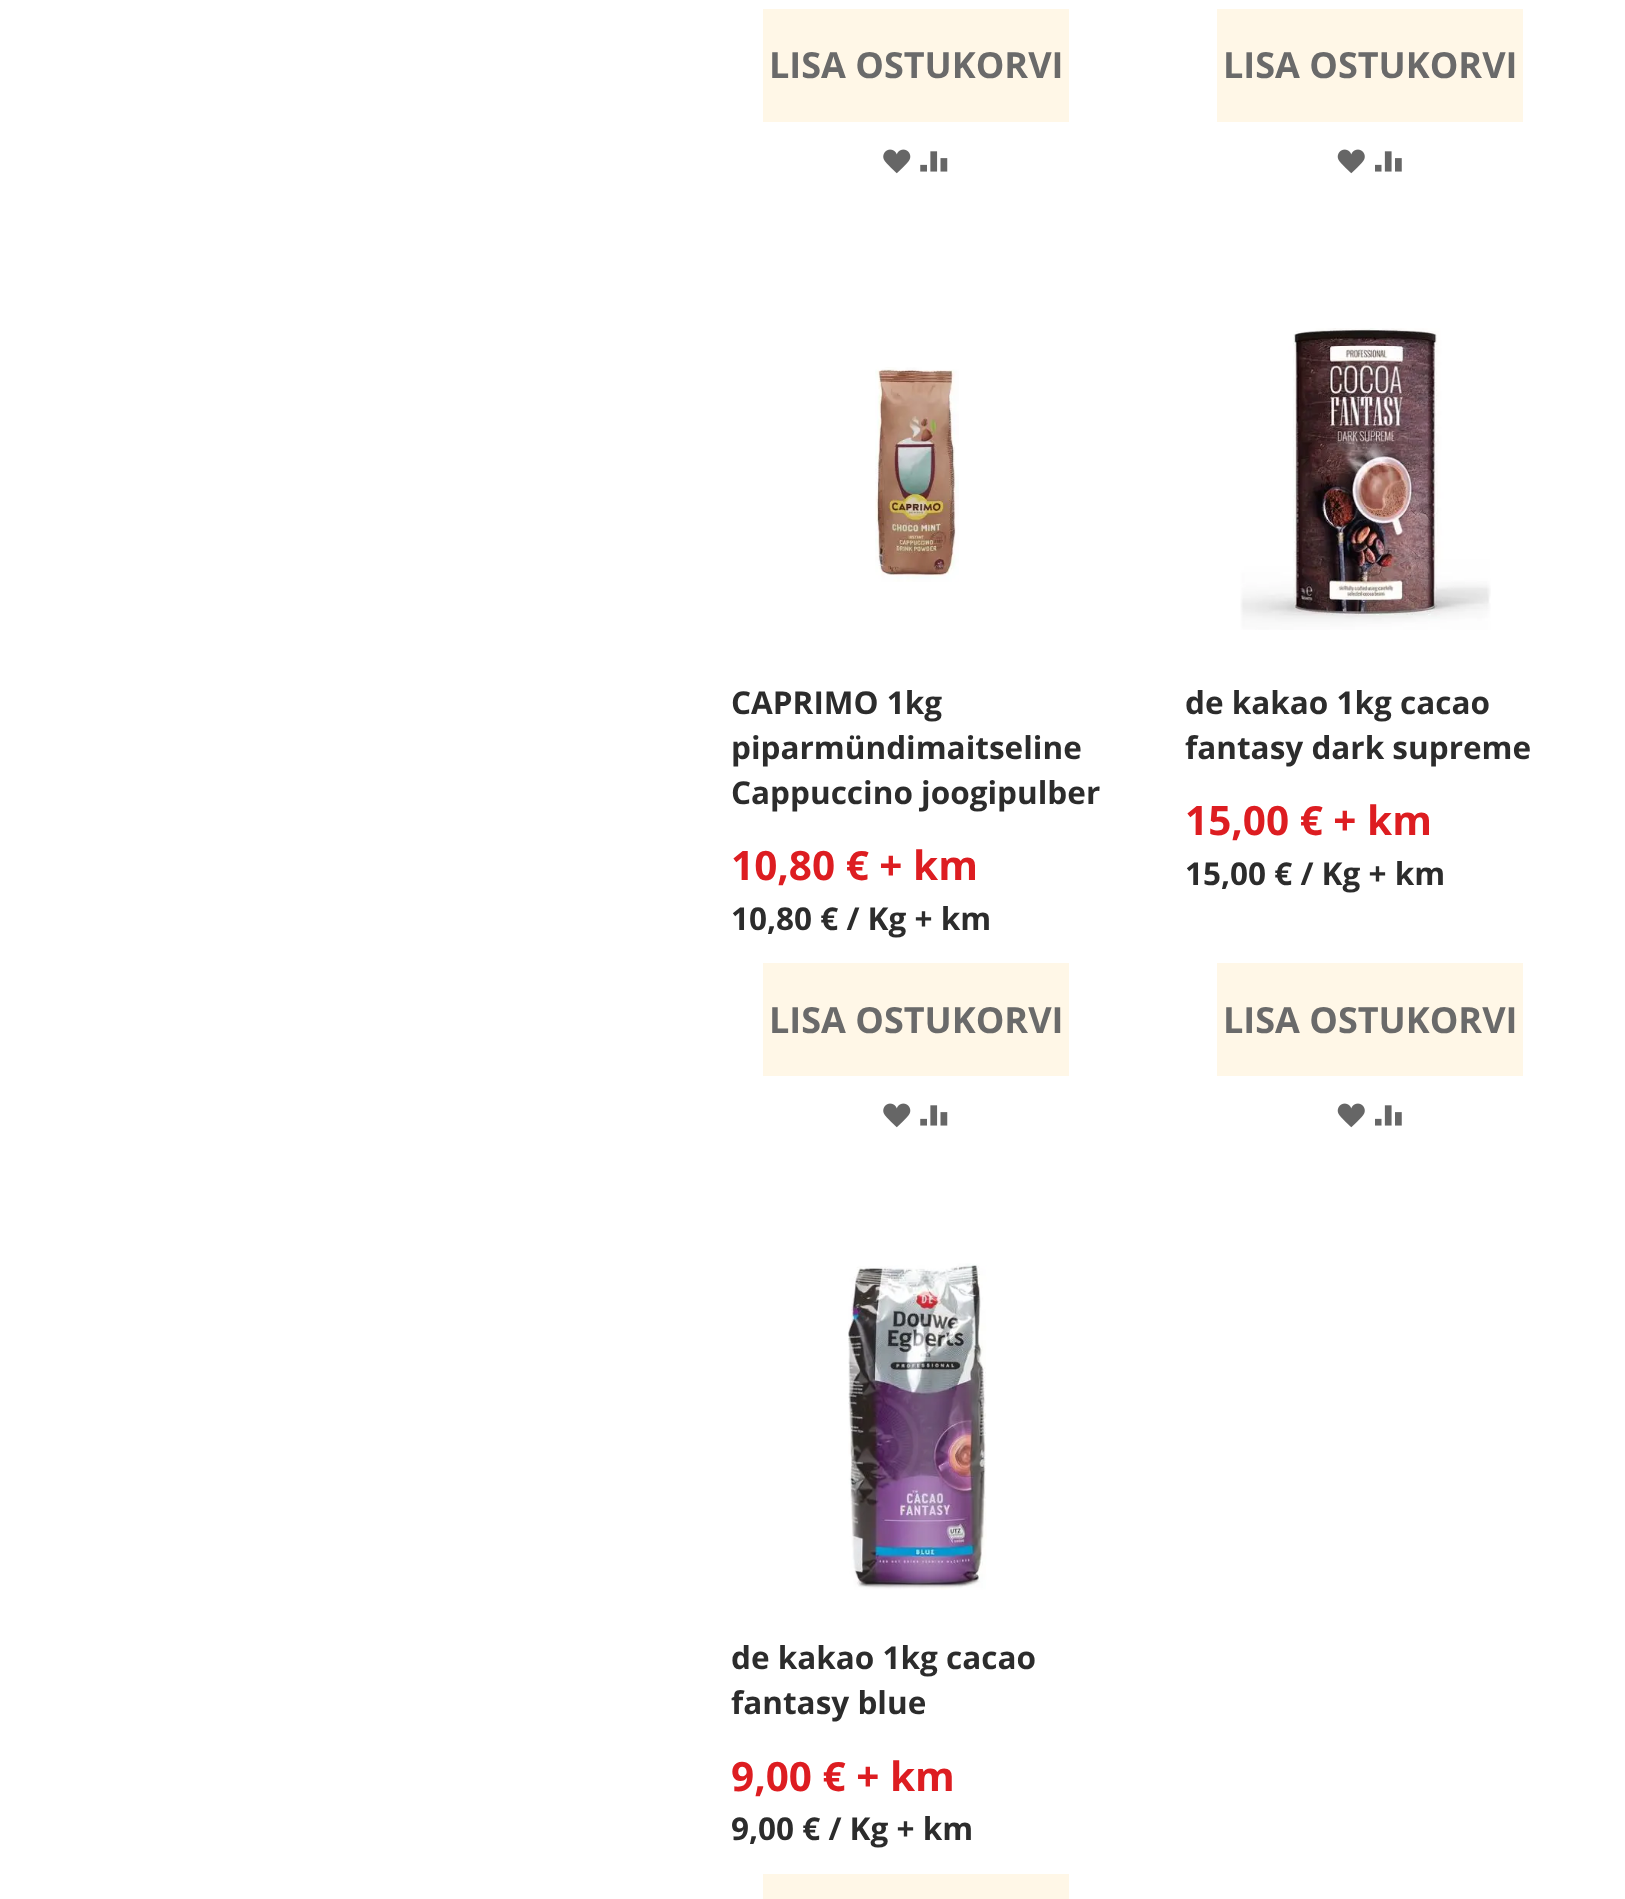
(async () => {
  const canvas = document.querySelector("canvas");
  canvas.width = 1625;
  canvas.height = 1899;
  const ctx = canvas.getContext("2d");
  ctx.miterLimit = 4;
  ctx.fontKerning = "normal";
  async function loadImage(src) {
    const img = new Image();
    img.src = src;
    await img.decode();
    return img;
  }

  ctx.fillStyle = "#ffffff";
  ctx.fillRect(0, 0, 1625, 1899);
  ctx.fillStyle = "#fff7e7";
  ctx.fillRect(763, 9, 306, 113);
  ctx.drawImage(await loadImage("img/1.png"), 883, 149, 28, 25);
  ctx.drawImage(await loadImage("img/2.png"), 920, 151, 28, 21);
  ctx.fillRect(1217, 9, 306, 113);
  ctx.drawImage(await loadImage("img/3.png"), 1337, 149, 28, 25);
  ctx.drawImage(await loadImage("img/4.png"), 1375, 151, 27, 21);
  ctx.drawImage(await loadImage("img/5.png"), 875, 367, 84, 215);
  ctx.fillRect(763, 963, 306, 113);
  ctx.drawImage(await loadImage("img/1.png"), 883, 1103, 28, 25);
  ctx.drawImage(await loadImage("img/2.png"), 920, 1105, 28, 21);
  ctx.drawImage(await loadImage("img/6.png"), 1240, 328, 251, 302);
  ctx.fillRect(1217, 963, 306, 113);
  ctx.drawImage(await loadImage("img/3.png"), 1337, 1103, 28, 25);
  ctx.drawImage(await loadImage("img/4.png"), 1375, 1105, 27, 21);
  ctx.drawImage(await loadImage("img/7.png"), 848, 1263, 139, 327);
  ctx.fillRect(763, 1874, 306, 25);
  ctx.font = "bold 36px Open Sans";
  ctx.fillStyle = "#6a6a6a";
  ctx.fillText("LISA OSTUKORVI", 769, 78);
  ctx.fillText("LISA OSTUKORVI", 1223, 78);
  ctx.font = "bold 31.5px Open Sans";
  ctx.fillStyle = "#2c2c2c";
  for (const [text, x, y] of [
    ["CAPRIMO 1kg", 731, 714],
    ["piparmündimaitseline", 731, 759],
    ["Cappuccino joogipulber", 731, 804],
  ]) {
    ctx.fillText(text, x, y);
  }
  ctx.font = "bold 40.5px Open Sans";
  ctx.fillStyle = "#dd1d21";
  ctx.fillText("10,80 € + km", 731, 880);
  ctx.font = "bold 31.5px Open Sans";
  ctx.fillStyle = "#2c2c2c";
  ctx.fillText("10,80 € / Kg + km", 731, 930);
  ctx.font = "bold 36px Open Sans";
  ctx.fillStyle = "#6a6a6a";
  ctx.fillText("LISA OSTUKORVI", 769, 1033);
  ctx.font = "bold 31.5px Open Sans";
  ctx.fillStyle = "#2c2c2c";
  ctx.fillText("de kakao 1kg cacao", 1185, 714);
  ctx.fillText("fantasy dark supreme", 1185, 759);
  ctx.font = "bold 40.5px Open Sans";
  ctx.fillStyle = "#dd1d21";
  ctx.fillText("15,00 € + km", 1185, 835);
  ctx.font = "bold 31.5px Open Sans";
  ctx.fillStyle = "#2c2c2c";
  ctx.fillText("15,00 € / Kg + km", 1185, 885);
  ctx.font = "bold 36px Open Sans";
  ctx.fillStyle = "#6a6a6a";
  ctx.fillText("LISA OSTUKORVI", 1223, 1033);
  ctx.font = "bold 31.5px Open Sans";
  ctx.fillStyle = "#2c2c2c";
  ctx.fillText("de kakao 1kg cacao", 731, 1669);
  ctx.fillText("fantasy blue", 731, 1714);
  ctx.font = "bold 40.5px Open Sans";
  ctx.fillStyle = "#dd1d21";
  ctx.fillText("9,00 € + km", 731, 1791);
  ctx.font = "bold 31.5px Open Sans";
  ctx.fillStyle = "#2c2c2c";
  ctx.fillText("9,00 € / Kg + km", 731, 1840);
})();
